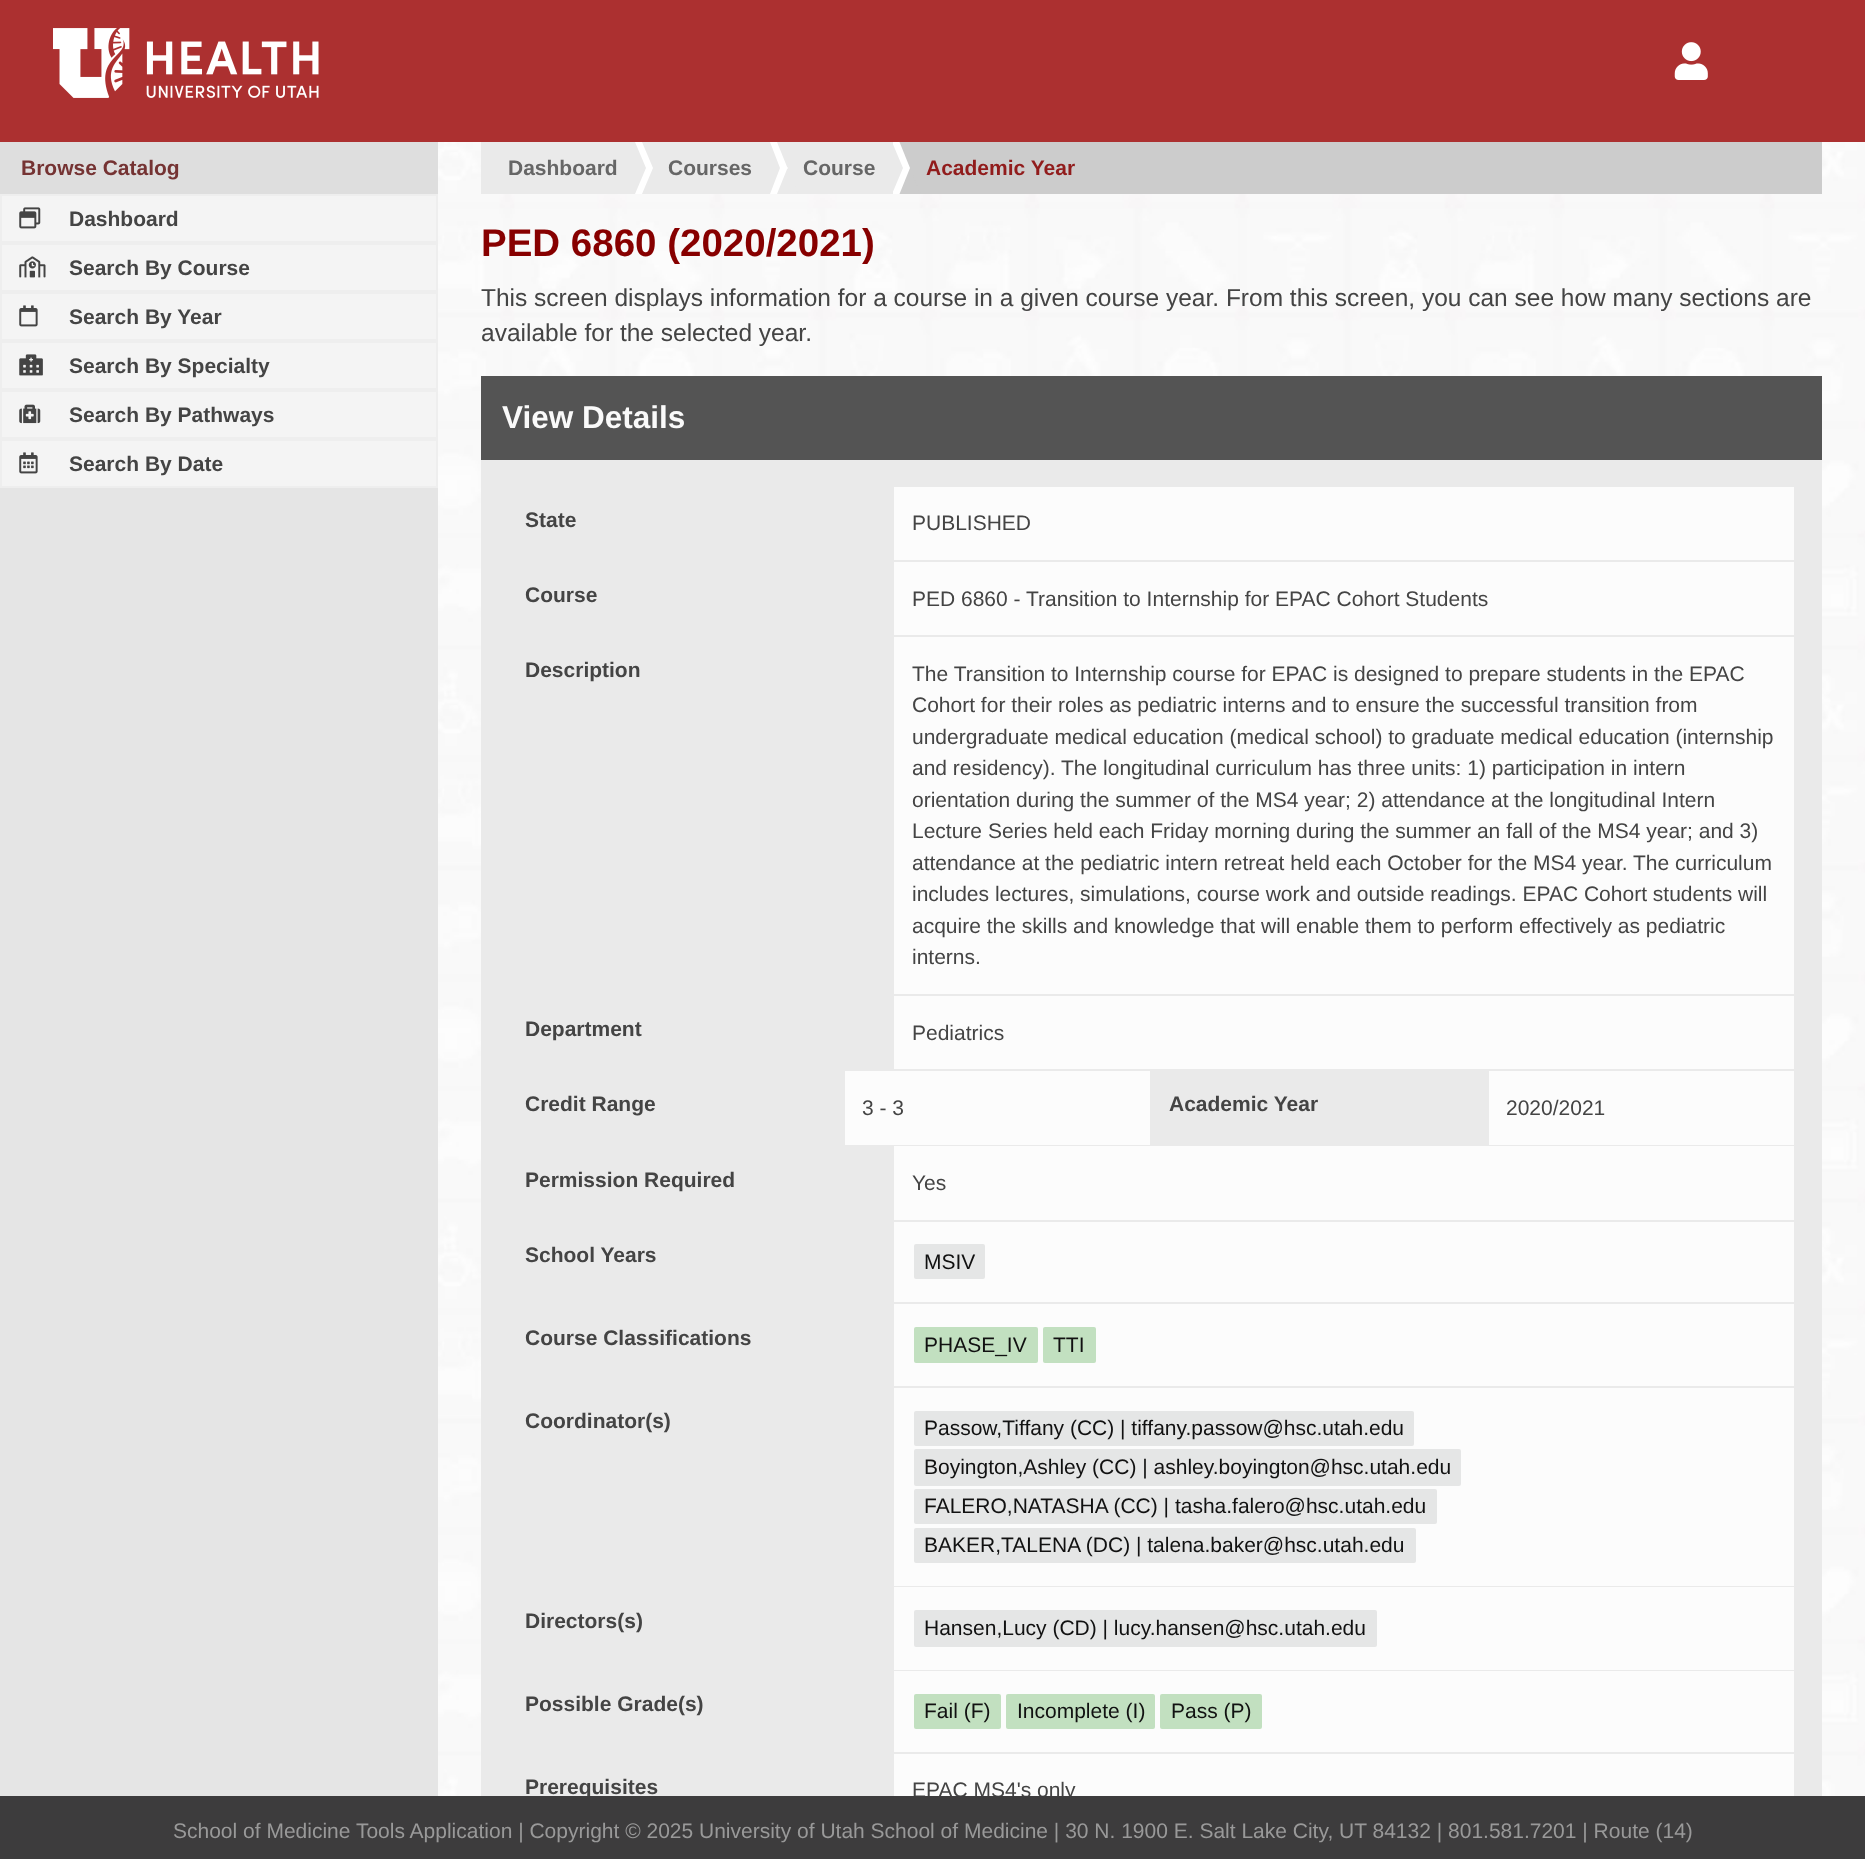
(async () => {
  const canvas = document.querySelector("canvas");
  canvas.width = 1865;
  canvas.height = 1859;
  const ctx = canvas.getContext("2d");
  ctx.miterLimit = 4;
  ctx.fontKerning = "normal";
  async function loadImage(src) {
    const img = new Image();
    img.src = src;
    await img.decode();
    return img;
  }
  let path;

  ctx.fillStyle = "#ffffff";
  ctx.fillRect(0, 0, 1865, 1859);
  ctx.drawImage(await loadImage("img/1.png"), 438, 142, 1427, 1654);
  ctx.fillStyle = "#ac3030";
  ctx.fillRect(0, 0, 1865, 142);
  ctx.drawImage(await loadImage("img/2.png"), 53, 28, 266, 70);
  ctx.drawImage(await loadImage("img/3.png"), 1674, 42, 34, 38);
  ctx.fillStyle = "#e5e5e5";
  ctx.fillRect(0, 488, 438, 1308);
  ctx.fillStyle = "#dedede";
  ctx.fillRect(0, 142, 438, 52);
  ctx.fillStyle = "#f4f4f4";
  ctx.beginPath();
  ctx.rect(1, 195, 436, 47);
  ctx.fill();
  ctx.strokeStyle = "#eeeeee";
  ctx.lineWidth = 2;
  ctx.stroke();
  ctx.drawImage(await loadImage("img/4.png"), 19, 207, 22, 22);
  ctx.beginPath();
  ctx.rect(1, 244, 436, 47);
  ctx.fill();
  ctx.stroke();
  ctx.drawImage(await loadImage("img/5.png"), 19, 256, 27, 22);
  ctx.beginPath();
  ctx.rect(1, 293, 436, 47);
  ctx.fill();
  ctx.stroke();
  ctx.drawImage(await loadImage("img/6.png"), 19, 305, 19, 22);
  ctx.beginPath();
  ctx.rect(1, 342, 436, 47);
  ctx.fill();
  ctx.stroke();
  ctx.drawImage(await loadImage("img/7.png"), 19, 354, 24, 22);
  ctx.beginPath();
  ctx.rect(1, 391, 436, 47);
  ctx.fill();
  ctx.stroke();
  ctx.drawImage(await loadImage("img/8.png"), 19, 404, 22, 20);
  ctx.beginPath();
  ctx.rect(1, 440, 436, 47);
  ctx.fill();
  ctx.stroke();
  ctx.drawImage(await loadImage("img/9.png"), 19, 452, 19, 22);
  for (const [x, y, w, h, color] of [
    [921, 142, 901, 52, "#cccccc"],
    [635, 142, 18, 52, "#ffffff"],
    [481, 142, 154, 52, "#eaeaea"],
  ]) {
    ctx.fillStyle = color;
    ctx.fillRect(x, y, w, h);
  }
  path = new Path2D("M635 194V142L646 168Z");
  ctx.fill(path);
  ctx.fillStyle = "#ffffff";
  ctx.fillRect(770, 142, 18, 52);
  ctx.fillStyle = "#eaeaea";
  ctx.fillRect(663, 142, 107, 52);
  path = new Path2D("M642 142H663L653 168Z");
  ctx.fill(path);
  ctx.fillRect(653, 142, 10, 52);
  path = new Path2D("M663 194H642L653 168Z");
  ctx.fill(path);
  path = new Path2D("M770 194V142L780 168Z");
  ctx.fill(path);
  ctx.fillStyle = "#ffffff";
  ctx.fillRect(893, 142, 17, 52);
  ctx.fillStyle = "#eaeaea";
  ctx.fillRect(798, 142, 95, 52);
  path = new Path2D("M777 142H798L787.5 168Z");
  ctx.fill(path);
  ctx.fillRect(788, 142, 10, 52);
  path = new Path2D("M798 194H777L787.5 168Z");
  ctx.fill(path);
  path = new Path2D("M892 194V142L903 168Z");
  ctx.fill(path);
  ctx.fillStyle = "#cccccc";
  path = new Path2D("M899.5 142H920.5L910 168Z");
  ctx.fill(path);
  ctx.fillRect(910, 142, 11, 52);
  path = new Path2D("M920.5 194H899.5L910 168Z");
  ctx.fill(path);
  for (const [x, y, w, h, color] of [
    [481, 376, 1341, 84, "#545454"],
    [481, 460, 1341, 1336, "#eaeaea"],
    [894, 487, 900, 73, "#fcfcfc"],
    [894, 562, 900, 73, "#fcfcfc"],
    [894, 637, 900, 357, "#fcfcfc"],
    [894, 996, 900, 73, "#fcfcfc"],
    [845, 1071, 305, 74, "#fcfcfc"],
    [1489, 1071, 305, 74, "#fcfcfc"],
    [894, 1146, 900, 74, "#fcfcfc"],
    [894, 1222, 900, 80, "#fcfcfc"],
  ]) {
    ctx.fillStyle = color;
    ctx.fillRect(x, y, w, h);
  }
  ctx.fillStyle = "#e5e6e6";
  ctx.beginPath();
  ctx.roundRect(914, 1244, 71, 35, 2);
  ctx.fill();
  ctx.fillStyle = "#fcfcfc";
  ctx.fillRect(894, 1304, 900, 82);
  ctx.fillStyle = "#c2e0c0";
  ctx.beginPath();
  ctx.roundRect(914, 1327, 124, 36, 2);
  ctx.fill();
  ctx.beginPath();
  ctx.roundRect(1043, 1327, 53, 36, 2);
  ctx.fill();
  ctx.fillStyle = "#fcfcfc";
  ctx.fillRect(894, 1388, 900, 198);
  ctx.fillStyle = "#e5e6e6";
  ctx.beginPath();
  ctx.roundRect(914, 1411, 500, 35, 2);
  ctx.fill();
  ctx.beginPath();
  ctx.roundRect(914, 1449, 547, 37, 2);
  ctx.fill();
  ctx.beginPath();
  ctx.roundRect(914, 1489, 523, 35, 2);
  ctx.fill();
  ctx.beginPath();
  ctx.roundRect(914, 1528, 502, 35, 2);
  ctx.fill();
  ctx.fillStyle = "#fcfcfc";
  ctx.fillRect(894, 1587, 900, 83);
  ctx.fillStyle = "#e5e6e6";
  ctx.beginPath();
  ctx.roundRect(914, 1610, 463, 37, 2);
  ctx.fill();
  ctx.fillStyle = "#fcfcfc";
  ctx.fillRect(894, 1671, 900, 81);
  ctx.fillStyle = "#c2e0c0";
  ctx.beginPath();
  ctx.roundRect(914, 1694, 87, 35, 2);
  ctx.fill();
  ctx.beginPath();
  ctx.roundRect(1006, 1694, 149, 35, 2);
  ctx.fill();
  ctx.beginPath();
  ctx.roundRect(1160, 1694, 102, 35, 2);
  ctx.fill();
  ctx.fillStyle = "#fcfcfc";
  ctx.fillRect(894, 1754, 900, 42);
  ctx.fillStyle = "#3d3c3d";
  ctx.fillRect(0, 1796, 1865, 63);
  ctx.font = "bold 21px Liberation Sans";
  ctx.fillStyle = "#753333";
  ctx.fillText("Browse Catalog", 21, 175);
  ctx.fillStyle = "#444444";
  for (const [text, x, y] of [
    ["Dashboard", 69, 226],
    ["Search By Course", 69, 275],
    ["Search By Year", 69, 324],
    ["Search By Specialty", 69, 373],
    ["Search By Pathways", 69, 422],
    ["Search By Date", 69, 471],
  ]) {
    ctx.fillText(text, x, y);
  }
  ctx.fillStyle = "#666666";
  for (const [text, x, y] of [
    ["Dashboard", 508, 175],
    ["Courses", 668, 175],
    ["Course", 803, 175],
  ]) {
    ctx.fillText(text, x, y);
  }
  ctx.fillStyle = "#911c1c";
  ctx.fillText("Academic Year", 926, 175);
  ctx.font = "bold 38.5px Liberation Sans";
  ctx.fillStyle = "#870000";
  ctx.fillText("PED 6860 (2020/2021)", 481, 256);
  ctx.font = "24.5px Liberation Sans";
  ctx.fillStyle = "#444444";
  ctx.fillText("This screen displays information for a course in a given course year. From this screen, you can see how many sections are", 481, 306);
  ctx.fillText("available for the selected year.", 481, 341);
  ctx.font = "bold 31.5px Liberation Sans";
  ctx.fillStyle = "#fafafa";
  ctx.fillText("View Details", 502, 428);
  ctx.font = "bold 21px Liberation Sans";
  ctx.fillStyle = "#444444";
  ctx.fillText("State", 525, 527);
  ctx.font = "21px Liberation Sans";
  ctx.fillText("PUBLISHED", 912, 530);
  ctx.font = "bold 21px Liberation Sans";
  ctx.fillText("Course", 525, 602);
  ctx.font = "21px Liberation Sans";
  ctx.fillText("PED 6860 - Transition to Internship for EPAC Cohort Students", 912, 606);
  ctx.font = "bold 21px Liberation Sans";
  ctx.fillText("Description", 525, 677);
  ctx.font = "21px Liberation Sans";
  for (const [text, x, y] of [
    ["The Transition to Internship course for EPAC is designed to prepare students in the EPAC", 912, 681],
    ["Cohort for their roles as pediatric interns and to ensure the successful transition from", 912, 712],
    ["undergraduate medical education (medical school) to graduate medical education (internship", 912, 744],
    ["and residency). The longitudinal curriculum has three units: 1) participation in intern", 912, 775],
    ["orientation during the summer of the MS4 year; 2) attendance at the longitudinal Intern", 912, 807],
    ["Lecture Series held each Friday morning during the summer an fall of the MS4 year; and 3)", 912, 838],
    ["attendance at the pediatric intern retreat held each October for the MS4 year. The curriculum", 912, 870],
    ["includes lectures, simulations, course work and outside readings. EPAC Cohort students will", 912, 901],
    ["acquire the skills and knowledge that will enable them to perform effectively as pediatric", 912, 933],
    ["interns.", 912, 964],
  ]) {
    ctx.fillText(text, x, y);
  }
  ctx.font = "bold 21px Liberation Sans";
  ctx.fillText("Department", 525, 1036);
  ctx.font = "21px Liberation Sans";
  ctx.fillText("Pediatrics", 912, 1040);
  ctx.font = "bold 21px Liberation Sans";
  ctx.fillText("Credit Range", 525, 1111);
  ctx.font = "21px Liberation Sans";
  ctx.fillText("3 - 3", 862, 1115);
  ctx.font = "bold 21px Liberation Sans";
  ctx.fillText("Academic Year", 1169, 1111);
  ctx.font = "21px Liberation Sans";
  ctx.fillText("2020/2021", 1506, 1115);
  ctx.font = "bold 21px Liberation Sans";
  ctx.fillText("Permission Required", 525, 1187);
  ctx.font = "21px Liberation Sans";
  ctx.fillText("Yes", 912, 1190);
  ctx.font = "bold 21px Liberation Sans";
  ctx.fillText("School Years", 525, 1262);
  ctx.font = "21px Liberation Sans";
  ctx.fillStyle = "#111111";
  ctx.fillText("MSIV", 924, 1269);
  ctx.font = "bold 21px Liberation Sans";
  ctx.fillStyle = "#444444";
  ctx.fillText("Course Classifications", 525, 1345);
  ctx.font = "21px Liberation Sans";
  ctx.fillStyle = "#111111";
  ctx.fillText("PHASE_IV", 924, 1352);
  ctx.fillText("TTI", 1053, 1352);
  ctx.font = "bold 21px Liberation Sans";
  ctx.fillStyle = "#444444";
  ctx.fillText("Coordinator(s)", 525, 1428);
  ctx.font = "21px Liberation Sans";
  ctx.fillStyle = "#111111";
  for (const [text, x, y] of [
    ["Passow,Tiffany (CC) | tiffany.passow@hsc.utah.edu", 924, 1435],
    ["Boyington,Ashley (CC) | ashley.boyington@hsc.utah.edu", 924, 1474],
    ["FALERO,NATASHA (CC) | tasha.falero@hsc.utah.edu", 924, 1513],
    ["BAKER,TALENA (DC) | talena.baker@hsc.utah.edu", 924, 1552],
  ]) {
    ctx.fillText(text, x, y);
  }
  ctx.font = "bold 21px Liberation Sans";
  ctx.fillStyle = "#444444";
  ctx.fillText("Directors(s)", 525, 1628);
  ctx.font = "21px Liberation Sans";
  ctx.fillStyle = "#111111";
  ctx.fillText("Hansen,Lucy (CD) | lucy.hansen@hsc.utah.edu", 924, 1635);
  ctx.font = "bold 21px Liberation Sans";
  ctx.fillStyle = "#444444";
  ctx.fillText("Possible Grade(s)", 525, 1711);
  ctx.font = "21px Liberation Sans";
  ctx.fillStyle = "#111111";
  for (const [text, x, y] of [
    ["Fail (F)", 924, 1718],
    ["Incomplete (I)", 1017, 1718],
    ["Pass (P)", 1171, 1718],
  ]) {
    ctx.fillText(text, x, y);
  }
  ctx.save();
  ctx.beginPath();
  ctx.rect(481, 376, 1341, 1420);
  ctx.clip();
  ctx.font = "bold 21px Liberation Sans";
  ctx.fillStyle = "#444444";
  ctx.fillText("Prerequisites", 525, 1794);
  ctx.font = "21px Liberation Sans";
  ctx.fillText("EPAC MS4's only", 912, 1797);
  ctx.restore();
  ctx.fillStyle = "#999999";
  ctx.fillText("School of Medicine Tools Application | Copyright © 2025 University of Utah School of Medicine | 30 N. 1900 E. Salt Lake City, UT 84132 | 801.581.7201 | Route (14)", 173, 1838);
})();
